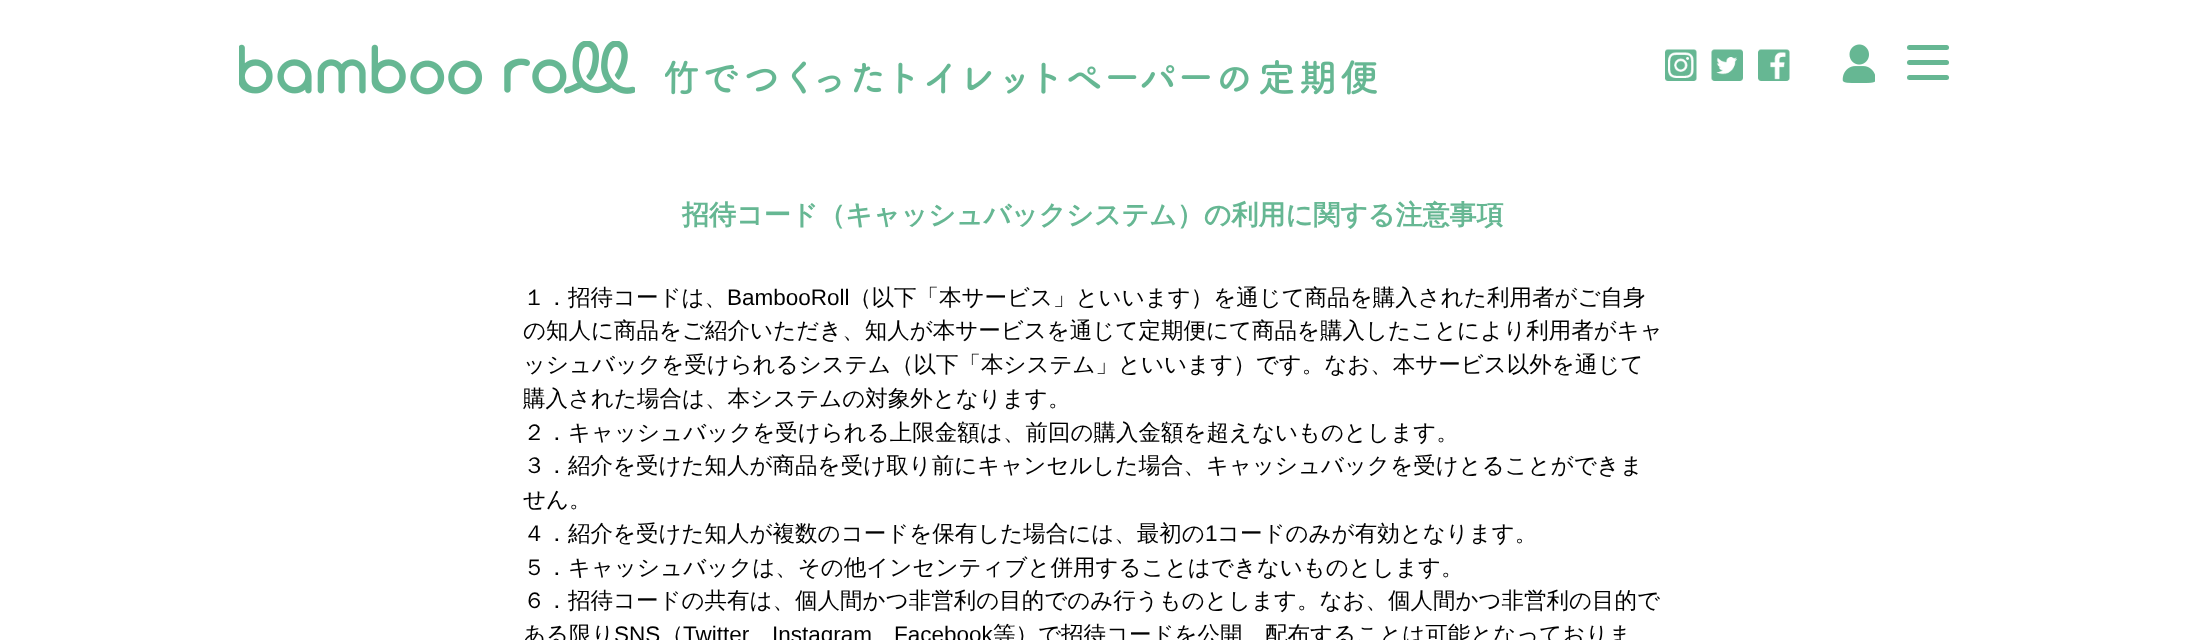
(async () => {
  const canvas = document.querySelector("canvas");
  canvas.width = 2185;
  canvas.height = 640;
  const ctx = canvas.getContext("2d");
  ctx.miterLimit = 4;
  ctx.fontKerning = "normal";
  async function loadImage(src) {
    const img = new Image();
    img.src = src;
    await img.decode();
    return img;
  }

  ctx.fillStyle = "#ffffff";
  ctx.fillRect(0, 0, 2185, 640);
  ctx.drawImage(await loadImage("img/1.png"), 239, 41, 396, 54);
  ctx.drawImage(await loadImage("img/2.png"), 665, 60, 712, 35);
  ctx.drawImage(await loadImage("img/3.png"), 1665, 49, 32, 32);
  ctx.drawImage(await loadImage("img/4.png"), 1711, 49, 32, 32);
  ctx.drawImage(await loadImage("img/5.png"), 1758, 49, 32, 32);
  ctx.drawImage(await loadImage("img/6.png"), 1842, 44, 33, 39);
  ctx.fillStyle = "#66b793";
  ctx.beginPath();
  ctx.roundRect(1907, 45, 42, 5, 2.5);
  ctx.fill();
  ctx.beginPath();
  ctx.roundRect(1907, 60, 42, 5, 2.5);
  ctx.fill();
  ctx.beginPath();
  ctx.roundRect(1907, 75, 42, 5, 2.5);
  ctx.fill();
  ctx.font = "bold 27px WenQuanYi Zen Hei";
  ctx.fillText("招待コード（キャッシュバックシステム）の利用に関する注意事項", 682, 224);
  ctx.font = "500 22.5px WenQuanYi Zen Hei";
  ctx.fillStyle = "#000000";
  ctx.fillText("１．招待コードは、", 523, 305);
  ctx.font = "22.5px Liberation Sans";
  ctx.fillText("BambooRoll", 727, 305);
  ctx.font = "500 22.5px WenQuanYi Zen Hei";
  for (const [text, x, y] of [
    ["（以下「本サービス」といいます）を通じて商品を購入された利用者がご自身", 849, 305],
    ["の知人に商品をご紹介いただき、知人が本サービスを通じて定期便にて商品を購入したことにより利用者がキャ", 523, 338],
    ["ッシュバックを受けられるシステム（以下「本システム」といいます）です。なお、本サービス以外を通じて", 523, 372],
    ["購入された場合は、本システムの対象外となります。", 523, 406],
    ["２．キャッシュバックを受けられる上限金額は、前回の購入金額を超えないものとします。", 523, 440],
    ["３．紹介を受けた知人が商品を受け取り前にキャンセルした場合、キャッシュバックを受けとることができま", 523, 473],
    ["せん。", 523, 507],
    ["４．紹介を受けた知人が複数のコードを保有した場合には、最初の", 523, 541],
  ]) {
    ctx.fillText(text, x, y);
  }
  ctx.font = "22.5px Liberation Sans";
  ctx.fillText("1", 1205, 541);
  ctx.font = "500 22.5px WenQuanYi Zen Hei";
  for (const [text, x, y] of [
    ["コードのみが有効となります。", 1217, 541],
    ["５．キャッシュバックは、その他インセンティブと併用することはできないものとします。", 523, 575],
    ["６．招待コードの共有は、個人間かつ非営利の目的でのみ行うものとします。なお、個人間かつ非営利の目的で", 523, 608],
    ["ある限り", 523, 642],
  ]) {
    ctx.fillText(text, x, y);
  }
  ctx.font = "22.5px Liberation Sans";
  ctx.fillText("SNS", 614, 642);
  ctx.font = "500 22.5px WenQuanYi Zen Hei";
  ctx.fillText("（", 661, 642);
  ctx.font = "22.5px Liberation Sans";
  for (const [text, x, y] of [
    ["Twitter", 683, 642],
    ["Instagram", 772, 642],
    ["Facebook", 894, 642],
  ]) {
    ctx.fillText(text, x, y);
  }
  ctx.font = "500 22.5px WenQuanYi Zen Hei";
  ctx.fillText("等）で招待コードを公開、配布することは可能となっておりま", 993, 642);
})();
